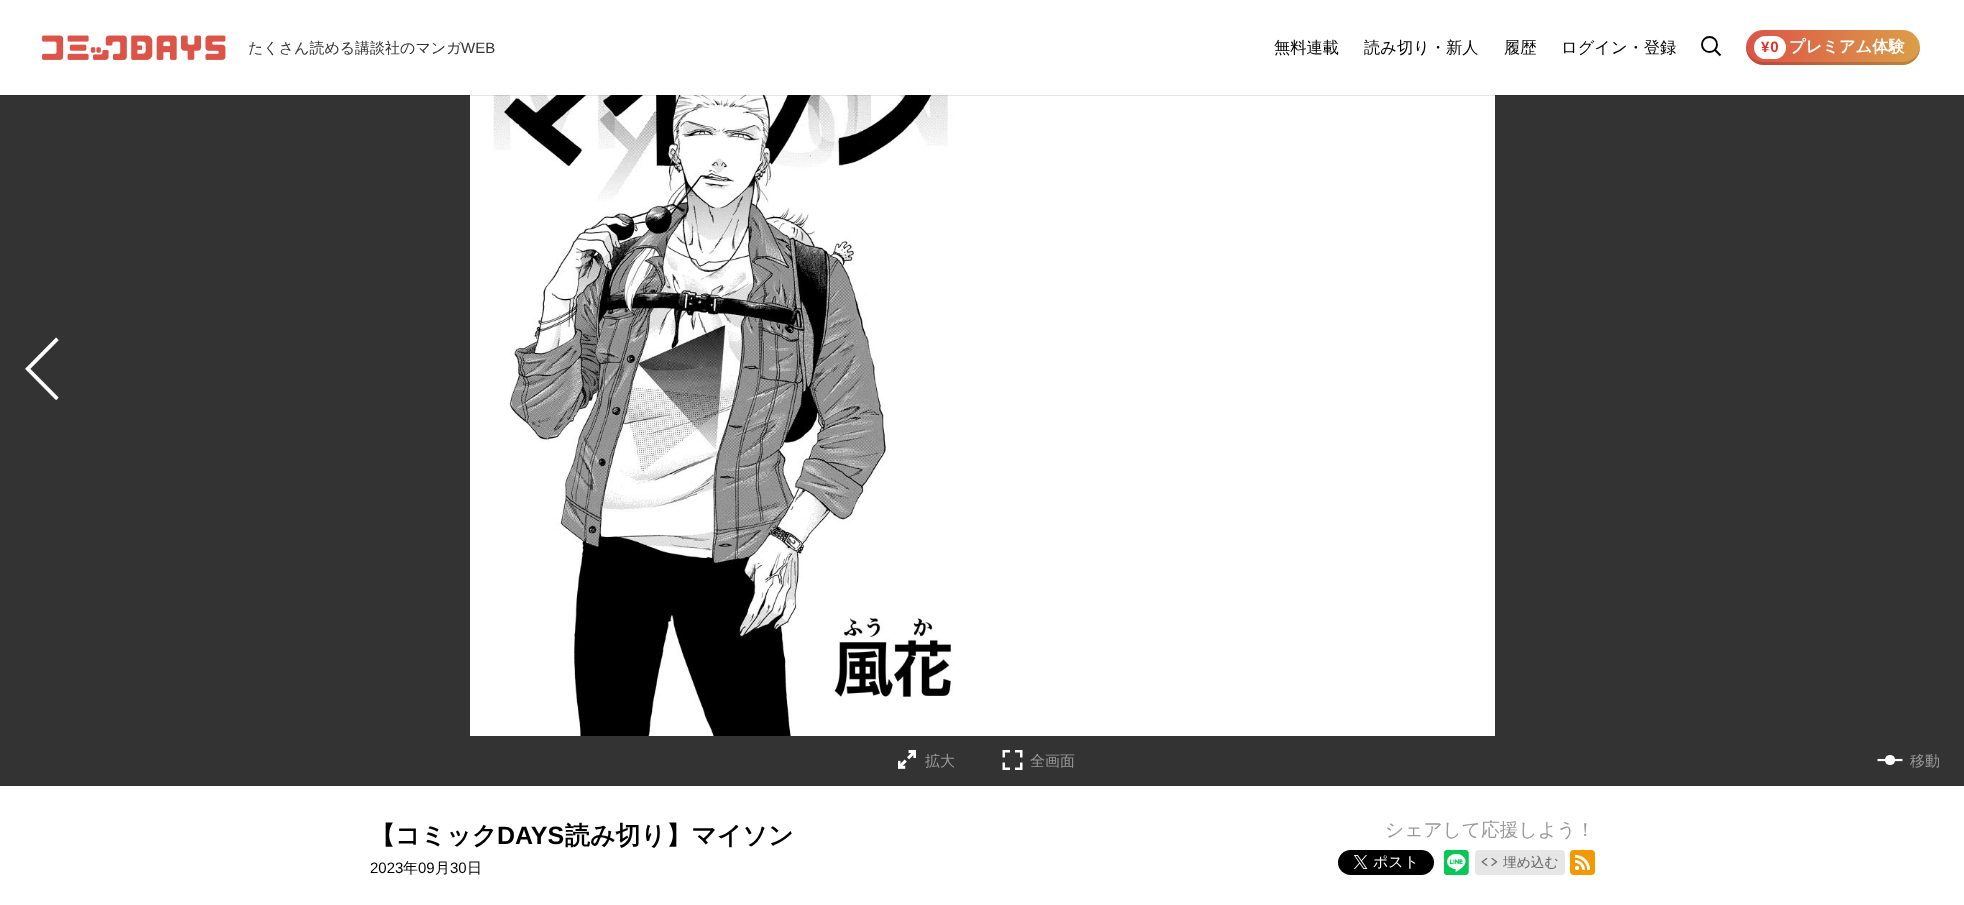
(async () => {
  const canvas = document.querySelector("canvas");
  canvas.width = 1964;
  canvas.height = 905;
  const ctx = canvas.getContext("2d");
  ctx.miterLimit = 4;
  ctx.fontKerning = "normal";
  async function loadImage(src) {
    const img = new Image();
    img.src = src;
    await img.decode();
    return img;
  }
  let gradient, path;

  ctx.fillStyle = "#ffffff";
  ctx.fillRect(0, 0, 1964, 905);
  ctx.fillStyle = "#333333";
  ctx.fillRect(0, 95, 1964, 691);
  ctx.drawImage(await loadImage("img/3.png"), 470, 95, 513, 641);
  ctx.fillStyle = "#ffffff";
  ctx.fillRect(983, 95, 512, 641);
  ctx.fillStyle = "rgba(0, 0, 0, 0.1)";
  ctx.fillRect(0, 95, 1964, 1);
  ctx.drawImage(await loadImage("img/1.png"), 42, 35, 184, 25);
  ctx.beginPath();
  ctx.arc(1709.5, 44.5, 7.5, 0, Math.PI * 2);
  ctx.strokeStyle = "#000000";
  ctx.lineWidth = 1.9;
  ctx.stroke();
  path = new Path2D("M1714.5 49.5L1720.5 55.5");
  ctx.stroke(path);
  gradient = ctx.createLinearGradient(1746, 48, 1920, 47);
  gradient.addColorStop(0, "#dc5448");
  gradient.addColorStop(1, "#db9e48");
  ctx.fillStyle = gradient;
  ctx.beginPath();
  ctx.roundRect(1746, 30, 174, 35, 17.5);
  ctx.fill();
  ctx.fillStyle = "rgba(0, 0, 0, 0.15)";
  path = new Path2D("M1746 46V48C1746 57 1754 65 1764 65H1902C1912 65 1920 57 1920 48V46C1919 56 1912 62 1902 62H1764C1754 62 1747 56 1746 46Z");
  ctx.fill(path);
  ctx.fillStyle = "#ffffff";
  ctx.beginPath();
  ctx.roundRect(1754, 36, 32, 23, 11.5);
  ctx.fill();
  ctx.drawImage(await loadImage("img/2.png"), 25, 337, 34, 63);
  ctx.drawImage(await loadImage("img/4.png"), 898, 750, 18, 19);
  ctx.drawImage(await loadImage("img/5.png"), 1002, 750, 21, 20);
  ctx.drawImage(await loadImage("img/6.png"), 1877, 755, 26, 10);
  ctx.fillStyle = "#000000";
  ctx.beginPath();
  ctx.roundRect(1338, 850, 96, 25, 12.5);
  ctx.fill();
  ctx.drawImage(await loadImage("img/7.png"), 1354, 855, 14, 14);
  ctx.drawImage(await loadImage("img/8.png"), 1444, 850, 25, 25);
  ctx.fillStyle = "#e6e6e6";
  ctx.beginPath();
  ctx.roundRect(1475, 850, 90, 25, 4);
  ctx.fill();
  ctx.drawImage(await loadImage("img/9.png"), 1481, 858, 17, 8);
  ctx.fillStyle = "#f39801";
  ctx.beginPath();
  ctx.roundRect(1570, 850, 25, 25, 4);
  ctx.fill();
  ctx.drawImage(await loadImage("img/10.png"), 1575, 855, 15, 15);
  ctx.font = "500 15px WenQuanYi Zen Hei";
  ctx.fillStyle = "#333333";
  ctx.fillText("たくさん読める講談社のマンガ", 248, 53);
  ctx.font = "15px Liberation Sans";
  ctx.fillText("WEB", 461, 53);
  ctx.font = "500 16.25px WenQuanYi Zen Hei";
  ctx.fillStyle = "#000000";
  for (const [text, x, y] of [
    ["無料連載", 1274, 53],
    ["読み切り・新人", 1364, 53],
    ["履歴", 1504, 53],
    ["ログイン・登録", 1561, 53],
  ]) {
    ctx.fillText(text, x, y);
  }
  ctx.letterSpacing = "1px";
  ctx.font = "bold 15px Liberation Sans";
  ctx.fillStyle = "#db332a";
  ctx.fillText("¥0", 1761, 52);
  ctx.letterSpacing = "0px";
  ctx.font = "bold 16.25px WenQuanYi Zen Hei";
  ctx.fillStyle = "#ffffff";
  ctx.fillText("プレミアム体験", 1789, 52);
  ctx.font = "500 15px WenQuanYi Zen Hei";
  ctx.fillStyle = "#999999";
  for (const [text, x, y] of [
    ["拡大", 925, 766],
    ["全画面", 1030, 766],
    ["移動", 1910, 766],
  ]) {
    ctx.fillText(text, x, y);
  }
  ctx.font = "bold 25px WenQuanYi Zen Hei";
  ctx.fillStyle = "#000000";
  ctx.fillText("【コミック", 370, 844);
  ctx.font = "bold 25px Liberation Sans";
  ctx.fillText("DAYS", 497, 844);
  ctx.font = "bold 25px WenQuanYi Zen Hei";
  ctx.fillText("読み切り】マイソン", 565, 844);
  ctx.font = "15px Liberation Sans";
  ctx.fillText("2023", 370, 873);
  ctx.font = "500 15px WenQuanYi Zen Hei";
  ctx.fillText("年", 403, 873);
  ctx.font = "15px Liberation Sans";
  ctx.fillText("09", 418, 873);
  ctx.font = "500 15px WenQuanYi Zen Hei";
  ctx.fillText("月", 435, 873);
  ctx.font = "15px Liberation Sans";
  ctx.fillText("30", 450, 873);
  ctx.font = "500 15px WenQuanYi Zen Hei";
  ctx.fillText("日", 467, 873);
  ctx.font = "500 18.75px WenQuanYi Zen Hei";
  ctx.fillStyle = "#999999";
  ctx.fillText("シェアして応援しよう！", 1385, 836);
  ctx.font = "500 15px WenQuanYi Zen Hei";
  ctx.fillStyle = "#ffffff";
  ctx.fillText("ポスト", 1373, 867);
  ctx.font = "500 13.75px WenQuanYi Zen Hei";
  ctx.fillStyle = "#666666";
  ctx.fillText("埋め込む", 1503, 867);
})();
